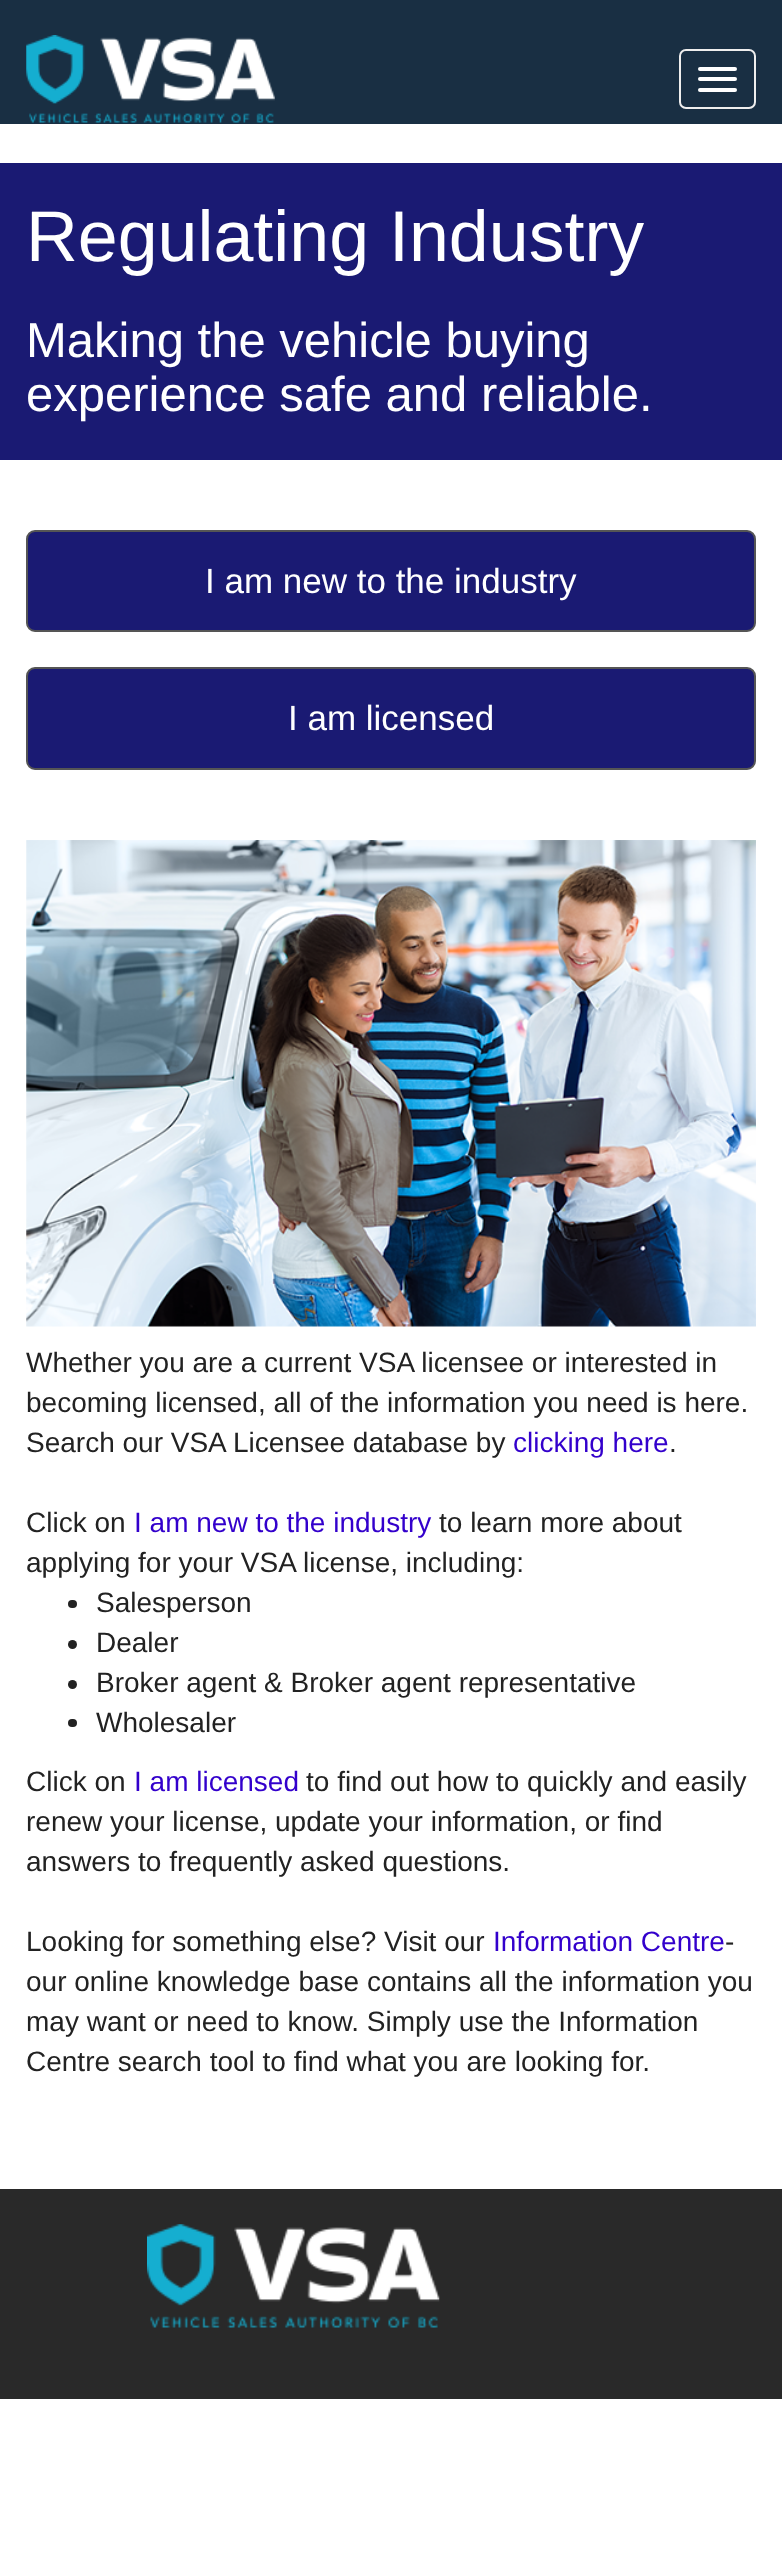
(async () => {
  const canvas = document.querySelector("canvas");
  canvas.width = 782;
  canvas.height = 2573;
  const ctx = canvas.getContext("2d");
  ctx.miterLimit = 4;
  ctx.fontKerning = "normal";
  async function loadImage(src) {
    const img = new Image();
    img.src = src;
    await img.decode();
    return img;
  }

  ctx.fillStyle = "#ffffff";
  ctx.fillRect(0, 0, 782, 2573);
  ctx.fillStyle = "#192f43";
  ctx.fillRect(0, 0, 782, 124);
  ctx.drawImage(await loadImage("img/1.png"), 26, 35, 249, 88);
  ctx.beginPath();
  ctx.roundRect(680, 50, 75, 58, 6);
  ctx.strokeStyle = "#eeeeee";
  ctx.lineWidth = 2;
  ctx.stroke();
  ctx.fillStyle = "#ffffff";
  ctx.beginPath();
  ctx.roundRect(698, 67, 39, 4, 2);
  ctx.fill();
  ctx.beginPath();
  ctx.roundRect(698, 77, 39, 4, 2);
  ctx.fill();
  ctx.beginPath();
  ctx.roundRect(698, 88, 39, 4, 2);
  ctx.fill();
  ctx.fillStyle = "#1a1a73";
  ctx.fillRect(0, 163, 782, 297);
  ctx.beginPath();
  ctx.roundRect(27, 531, 728, 100, 8);
  ctx.fill();
  ctx.strokeStyle = "#555555";
  ctx.stroke();
  ctx.beginPath();
  ctx.roundRect(27, 668, 728, 101, 8);
  ctx.fill();
  ctx.stroke();
  ctx.drawImage(await loadImage("img/2.png"), 26, 840, 730, 487);
  ctx.fillStyle = "#222222";
  ctx.beginPath();
  ctx.roundRect(68, 1600, 9, 8, 4);
  ctx.fill();
  ctx.beginPath();
  ctx.arc(72.5, 1644.5, 4.5, 0, Math.PI * 2);
  ctx.fill();
  ctx.beginPath();
  ctx.arc(72.5, 1684.5, 4.5, 0, Math.PI * 2);
  ctx.fill();
  ctx.beginPath();
  ctx.roundRect(68, 1719, 9, 8, 4);
  ctx.fill();
  ctx.fillStyle = "#292929";
  ctx.fillRect(0, 2189, 782, 210);
  ctx.drawImage(await loadImage("img/3.png"), 147, 2224, 293, 104);
  ctx.font = "71.75px Liberation Sans";
  ctx.fillStyle = "#ffffff";
  ctx.fillText("Regulating Industry", 26, 261);
  ctx.font = "49px Liberation Sans";
  ctx.fillText("Making the vehicle buying", 26, 357);
  ctx.fillText("experience safe and reliable.", 26, 411);
  ctx.font = "35px Liberation Sans";
  ctx.fillText("I am new to the industry", 205, 593);
  ctx.fillText("I am licensed", 288, 730);
  ctx.font = "28px Liberation Sans";
  ctx.fillStyle = "#222222";
  for (const [text, x, y] of [
    ["Whether you are a current VSA licensee or interested in", 26, 1372],
    ["becoming licensed, all of the information you need is here.", 26, 1412],
    ["Search our VSA Licensee database by", 26, 1452],
  ]) {
    ctx.fillText(text, x, y);
  }
  ctx.fillStyle = "#3300cc";
  ctx.fillText("clicking here", 513, 1452);
  ctx.fillStyle = "#222222";
  ctx.fillText(".", 669, 1452);
  ctx.fillText("Click on", 26, 1532);
  ctx.fillStyle = "#3300cc";
  ctx.fillText("I am new to the industry", 134, 1532);
  ctx.fillStyle = "#222222";
  for (const [text, x, y] of [
    ["to learn more about", 439, 1532],
    ["applying for your VSA license, including:", 26, 1572],
    ["Salesperson", 96, 1612],
    ["Dealer", 96, 1652],
    ["Broker agent & Broker agent representative", 96, 1692],
    ["Wholesaler", 96, 1732],
    ["Click on", 26, 1791],
  ]) {
    ctx.fillText(text, x, y);
  }
  ctx.fillStyle = "#3300cc";
  ctx.fillText("I am licensed", 134, 1791);
  ctx.fillStyle = "#222222";
  for (const [text, x, y] of [
    ["to find out how to quickly and easily", 306, 1791],
    ["renew your license, update your information, or find", 26, 1831],
    ["answers to frequently asked questions.", 26, 1871],
    ["Looking for something else? Visit our", 26, 1951],
  ]) {
    ctx.fillText(text, x, y);
  }
  ctx.fillStyle = "#3300cc";
  ctx.fillText("Information Centre", 493, 1951);
  ctx.fillStyle = "#222222";
  for (const [text, x, y] of [
    ["-", 725, 1951],
    ["our online knowledge base contains all the information you", 26, 1991],
    ["may want or need to know. Simply use the Information", 26, 2031],
    ["Centre search tool to find what you are looking for.", 26, 2071],
  ]) {
    ctx.fillText(text, x, y);
  }
})();
